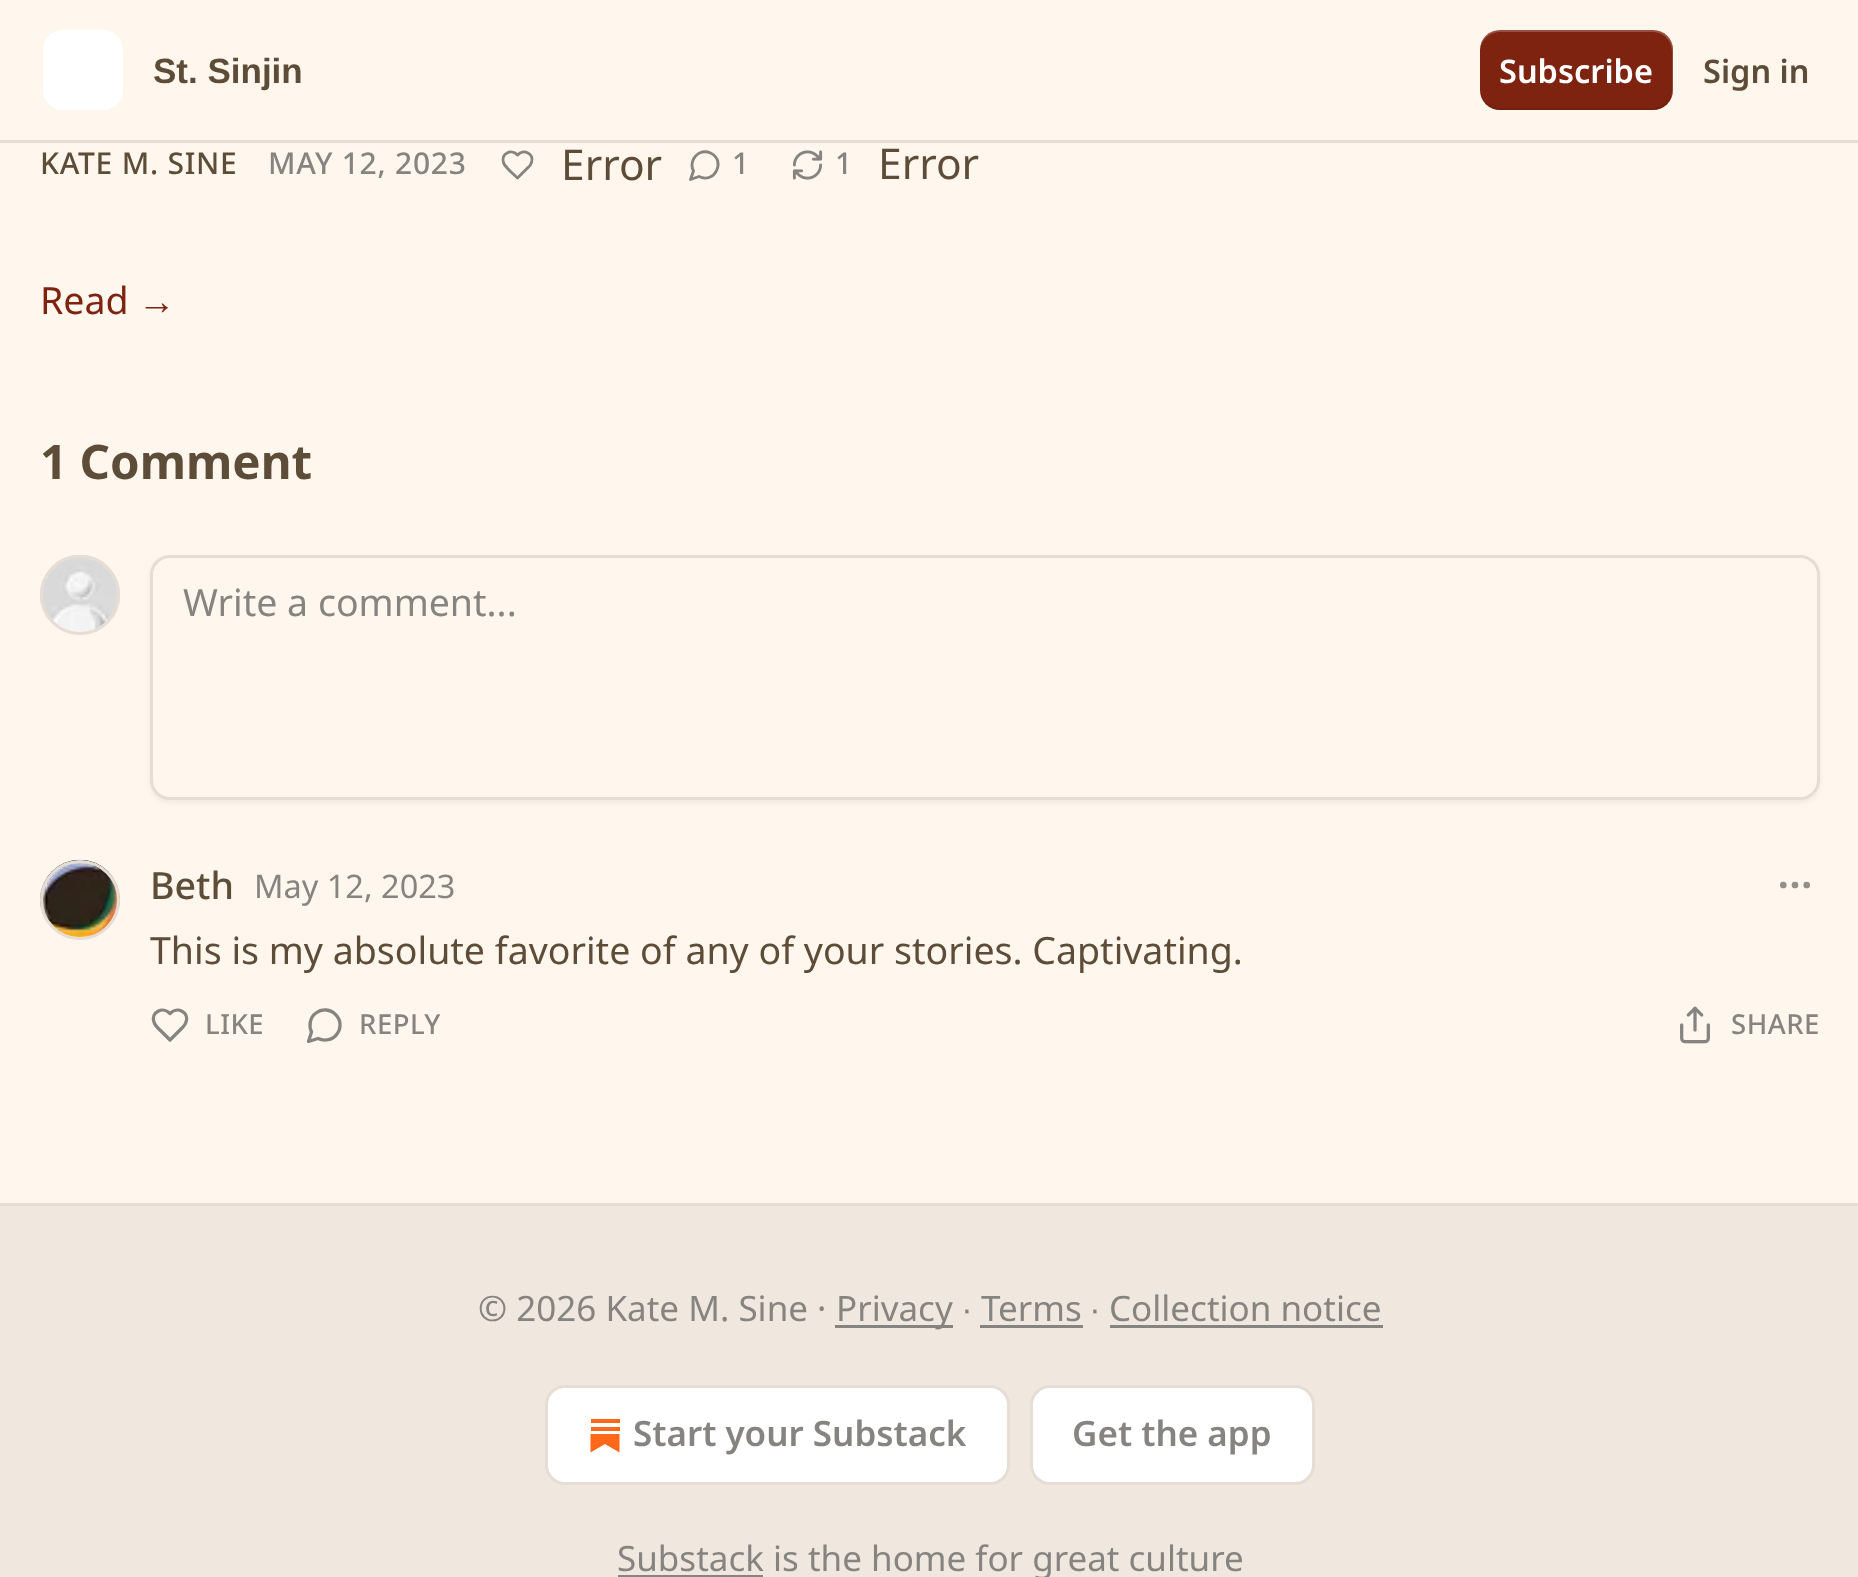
(async () => {
  const canvas = document.querySelector("canvas");
  canvas.width = 1858;
  canvas.height = 1577;
  const ctx = canvas.getContext("2d");
  ctx.miterLimit = 4;
  ctx.fontKerning = "normal";
  async function loadImage(src) {
    const img = new Image();
    img.src = src;
    await img.decode();
    return img;
  }
  let path;

  ctx.fillStyle = "#fff7ed";
  ctx.fillRect(0, 0, 1858, 1577);
  ctx.fillStyle = "#e6ded5";
  ctx.fillRect(0, 140, 1858, 3);
  ctx.fillStyle = "#ffffff";
  ctx.beginPath();
  ctx.roundRect(43, 30, 80, 80, 20);
  ctx.fill();
  ctx.fillStyle = "#7e2310";
  ctx.beginPath();
  ctx.roundRect(1480, 30, 193, 80, 20);
  ctx.fill();
  ctx.fillStyle = "rgba(0, 0, 0, 0.1)";
  path = new Path2D("M1480 88V90C1480 101 1489 110 1500 110H1653C1664 110 1673 101 1673 90V50C1673 47 1672 44 1671 42L1672 48V88C1672 99 1664 108 1652 108H1500C1489 108 1480 99 1480 88Z");
  ctx.fill(path);
  ctx.fillStyle = "rgba(255, 255, 255, 0.2)";
  path = new Path2D("M1500 32H1652C1664 32 1672 41 1672 52V92L1671 98C1672 96 1673 93 1673 90V50C1673 39 1664 30 1653 30H1500C1489 30 1480 39 1480 50V52C1480 41 1489 32 1500 32Z");
  ctx.fill(path);
  path = new Path2D("M527.5 168C529.5 166.5 531 164.5 531.5 162.5C534.5 153.5 523.5 148.5 517.5 155C511.5 148.5 500.5 153.5 503.5 162.5C504.5 166 508 168.5 510.5 171.5L517.5 178Z");
  ctx.strokeStyle = "#868480";
  ctx.lineWidth = 2.9;
  ctx.lineCap = "round";
  ctx.lineJoin = "round";
  ctx.stroke(path);
  path = new Path2D("M699 176.5C714.5 184.5 726.5 160.5 710.5 153C707 151.5 703 151.5 699.5 153C693 156.5 690 164.5 693.5 171L690.5 179.5Z");
  ctx.stroke(path);
  ctx.drawImage(await loadImage("img/1.png"), 792, 150, 31, 30);
  ctx.beginPath();
  ctx.arc(80, 595, 38.5, 0, Math.PI * 2);
  ctx.strokeStyle = "#e6ded5";
  ctx.lineWidth = 3;
  ctx.stroke();
  ctx.drawImage(await loadImage("img/2.png"), 40, 554, 80, 80);
  ctx.beginPath();
  ctx.arc(80, 595, 38.5, 0, Math.PI * 2);
  ctx.stroke();
  ctx.fillStyle = "rgba(0, 0, 0, 0.05)";
  ctx.filter = "blur(2.5px)";
  ctx.beginPath();
  ctx.roundRect(150, 558, 1670, 245, 20);
  ctx.fill();
  ctx.filter = "none";
  ctx.fillStyle = "#fff7ed";
  ctx.beginPath();
  ctx.roundRect(151.5, 556.5, 1667, 242, 18.5);
  ctx.fill();
  ctx.lineJoin = "miter";
  ctx.stroke();
  ctx.beginPath();
  ctx.arc(80, 900, 38.5, 0, Math.PI * 2);
  ctx.stroke();
  ctx.drawImage(await loadImage("img/3.png"), 40, 859, 80, 81);
  ctx.beginPath();
  ctx.arc(80, 900, 38.5, 0, Math.PI * 2);
  ctx.stroke();
  ctx.beginPath();
  ctx.arc(1795, 885, 1.7, 0, Math.PI * 2);
  ctx.strokeStyle = "#928e88";
  ctx.lineWidth = 3.3;
  ctx.stroke();
  ctx.beginPath();
  ctx.arc(1806.7, 885, 1.7, 0, Math.PI * 2);
  ctx.stroke();
  ctx.beginPath();
  ctx.arc(1783.3, 885, 1.7, 0, Math.PI * 2);
  ctx.stroke();
  path = new Path2D("M181.5 1028.5C183.5 1026.5 185.5 1024.5 186 1022C189.5 1012 177 1006 170 1013.5C163 1006 150.5 1012 154 1022C155 1026 159 1029 162 1032L170 1040Z");
  ctx.strokeStyle = "#868480";
  ctx.lineJoin = "round";
  ctx.stroke(path);
  path = new Path2D("M318 1038.5C324.5 1041.5 333 1040 337 1034C341.5 1028 341 1019.5 335.5 1014.5C330.5 1009 322 1008.5 316 1013C310 1017 308.5 1025.5 311.5 1032L308.5 1041.5Z");
  ctx.stroke(path);
  ctx.drawImage(await loadImage("img/4.png"), 1680, 1006, 30, 38);
  for (const [x, y, w, h, color] of [
    [0, 1206, 1858, 371, "#f0e8df"],
    [0, 1203, 1858, 3, "#e6ded5"],
    [835, 1325, 118, 3, "#868480"],
    [980, 1325, 103, 3, "#868480"],
    [1110, 1325, 273, 3, "#868480"],
  ]) {
    ctx.fillStyle = color;
    ctx.fillRect(x, y, w, h);
  }
  ctx.fillStyle = "#ffffff";
  ctx.beginPath();
  ctx.roundRect(546.5, 1386.5, 462, 97, 18.5);
  ctx.fill();
  ctx.strokeStyle = "#e6ded5";
  ctx.lineWidth = 3;
  ctx.lineJoin = "miter";
  ctx.stroke();
  ctx.fillStyle = "#ff6719";
  ctx.fillRect(591, 1427, 29, 4);
  path = new Path2D("M590.5 1434V1452.5L605 1444L619.5 1452.5V1434Z");
  ctx.fill(path);
  ctx.fillRect(591, 1419, 29, 4);
  ctx.fillStyle = "#ffffff";
  ctx.beginPath();
  ctx.roundRect(1031.5, 1386.5, 282, 97, 18.5);
  ctx.fill();
  ctx.stroke();
  ctx.fillStyle = "#868480";
  ctx.fillRect(618, 1575, 145, 2);
  ctx.font = "bold 35px Liberation Sans";
  ctx.fillStyle = "#5d4c37";
  ctx.fillText("St. Sinjin", 153, 83);
  ctx.font = "600 32.5px Noto Sans";
  ctx.fillStyle = "#ffffff";
  ctx.fillText("Subscribe", 1499, 83);
  ctx.fillStyle = "#5d4c37";
  ctx.fillText("Sign in", 1703, 83);
  ctx.letterSpacing = "0.75px";
  ctx.font = "500 30px Noto Sans";
  ctx.fillText("KATE M. SINE", 40, 174);
  ctx.fillStyle = "#868480";
  ctx.fillText("MAY 12, 2023", 268, 174);
  ctx.letterSpacing = "0px";
  ctx.font = "42.5px Noto Sans";
  ctx.fillStyle = "#5d4c37";
  ctx.fillText("Error", 561, 180);
  ctx.letterSpacing = "0.75px";
  ctx.font = "500 30px Noto Sans";
  ctx.fillStyle = "#868480";
  ctx.fillText("1", 732, 174);
  ctx.fillText("1", 835, 174);
  ctx.letterSpacing = "0px";
  ctx.font = "42.5px Noto Sans";
  ctx.fillStyle = "#5d4c37";
  ctx.fillText("Error", 878, 179);
  ctx.font = "37.5px Noto Sans";
  ctx.fillStyle = "#7e2310";
  ctx.fillText("Read", 40, 314);
  ctx.font = "37.5px Liberation Sans";
  ctx.fillText("→", 138, 314);
  ctx.font = "bold 47.5px Noto Sans";
  ctx.fillStyle = "#5d4c37";
  ctx.fillText("1 Comment", 40, 479);
  ctx.font = "37.5px Noto Sans";
  ctx.fillStyle = "#868480";
  ctx.fillText("Write a comment...", 183, 616);
  ctx.font = "500 37.5px Noto Sans";
  ctx.fillStyle = "#5d4c37";
  ctx.fillText("Beth", 150, 899);
  ctx.font = "32.5px Noto Sans";
  ctx.fillStyle = "#868480";
  ctx.fillText("May 12, 2023", 254, 898);
  ctx.font = "37.5px Noto Sans";
  ctx.fillStyle = "#5d4c37";
  ctx.fillText("This is my absolute favorite of any of your stories. Captivating.", 150, 964);
  ctx.letterSpacing = "0.5px";
  ctx.font = "500 27.5px Noto Sans";
  ctx.fillStyle = "#868480";
  for (const [text, x, y] of [
    ["LIKE", 205, 1034],
    ["REPLY", 359, 1034],
    ["SHARE", 1731, 1034],
  ]) {
    ctx.fillText(text, x, y);
  }
  ctx.letterSpacing = "0px";
  ctx.font = "35px Noto Sans";
  ctx.fillText("© 2026 Kate M. Sine ·", 478, 1321);
  ctx.fillText("Privacy", 836, 1321);
  ctx.font = "35px Liberation Sans";
  ctx.fillText("∙", 962, 1321);
  ctx.font = "35px Noto Sans";
  ctx.fillText("Terms", 981, 1321);
  ctx.font = "35px Liberation Sans";
  ctx.fillText("∙", 1090, 1321);
  ctx.font = "35px Noto Sans";
  ctx.fillText("Collection notice", 1109, 1321);
  ctx.font = "600 35px Noto Sans";
  ctx.fillText("Start your Substack", 633, 1446);
  ctx.fillText("Get the app", 1072, 1446);
  ctx.font = "35px Noto Sans";
  ctx.fillText("Substack is the home for great culture", 617, 1571);
})();
